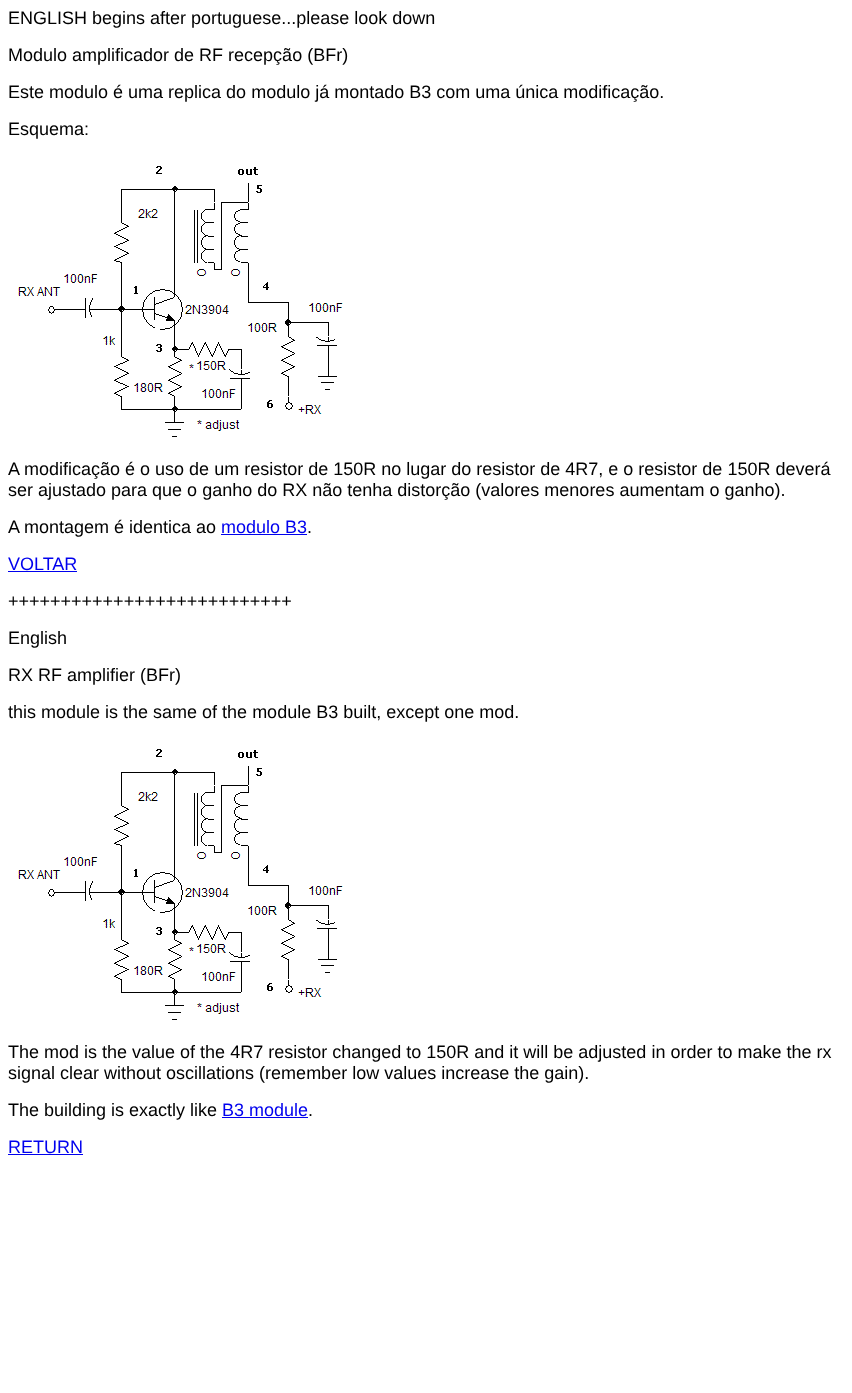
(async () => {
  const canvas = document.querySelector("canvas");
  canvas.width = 852;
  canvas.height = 1393;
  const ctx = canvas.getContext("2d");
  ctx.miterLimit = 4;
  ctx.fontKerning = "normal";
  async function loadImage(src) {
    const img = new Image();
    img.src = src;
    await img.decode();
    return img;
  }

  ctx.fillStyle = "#ffffff";
  ctx.fillRect(0, 0, 852, 1393);
  ctx.drawImage(await loadImage("img/1.png"), 18, 166, 325, 271);
  ctx.fillStyle = "#0000ee";
  ctx.fillRect(221, 534, 86, 1);
  ctx.fillRect(8, 571, 69, 1);
  ctx.drawImage(await loadImage("img/1.png"), 18, 749, 325, 271);
  ctx.fillRect(222, 1117, 86, 1);
  ctx.fillRect(8, 1154, 75, 1);
  ctx.font = "18px Liberation Sans";
  ctx.fillStyle = "#000000";
  for (const [text, x, y] of [
    ["ENGLISH begins after portuguese...please look down", 8, 24],
    ["Modulo amplificador de RF recepção (BFr)", 8, 61],
    ["Este modulo é uma replica do modulo já montado B3 com uma única modificação.", 8, 98],
    ["Esquema:", 8, 135],
    ["A modificação é o uso de um resistor de 150R no lugar do resistor de 4R7, e o resistor de 150R deverá", 8, 475],
    ["ser ajustado para que o ganho do RX não tenha distorção (valores menores aumentam o ganho).", 8, 496],
    ["A montagem é identica ao", 8, 533],
  ]) {
    ctx.fillText(text, x, y);
  }
  ctx.fillStyle = "#0000ee";
  ctx.fillText("modulo B3", 221, 533);
  ctx.fillStyle = "#000000";
  ctx.fillText(".", 307, 533);
  ctx.fillStyle = "#0000ee";
  ctx.fillText("VOLTAR", 8, 570);
  ctx.fillStyle = "#000000";
  for (const [text, x, y] of [
    ["+++++++++++++++++++++++++++", 8, 607],
    ["English", 8, 644],
    ["RX RF amplifier (BFr)", 8, 681],
    ["this module is the same of the module B3 built, except one mod.", 8, 718],
    ["The mod is the value of the 4R7 resistor changed to 150R and it will be adjusted in order to make the rx", 8, 1058],
    ["signal clear without oscillations (remember low values increase the gain).", 8, 1079],
    ["The building is exactly like", 8, 1116],
  ]) {
    ctx.fillText(text, x, y);
  }
  ctx.fillStyle = "#0000ee";
  ctx.fillText("B3 module", 222, 1116);
  ctx.fillStyle = "#000000";
  ctx.fillText(".", 308, 1116);
  ctx.fillStyle = "#0000ee";
  ctx.fillText("RETURN", 8, 1153);
})();
